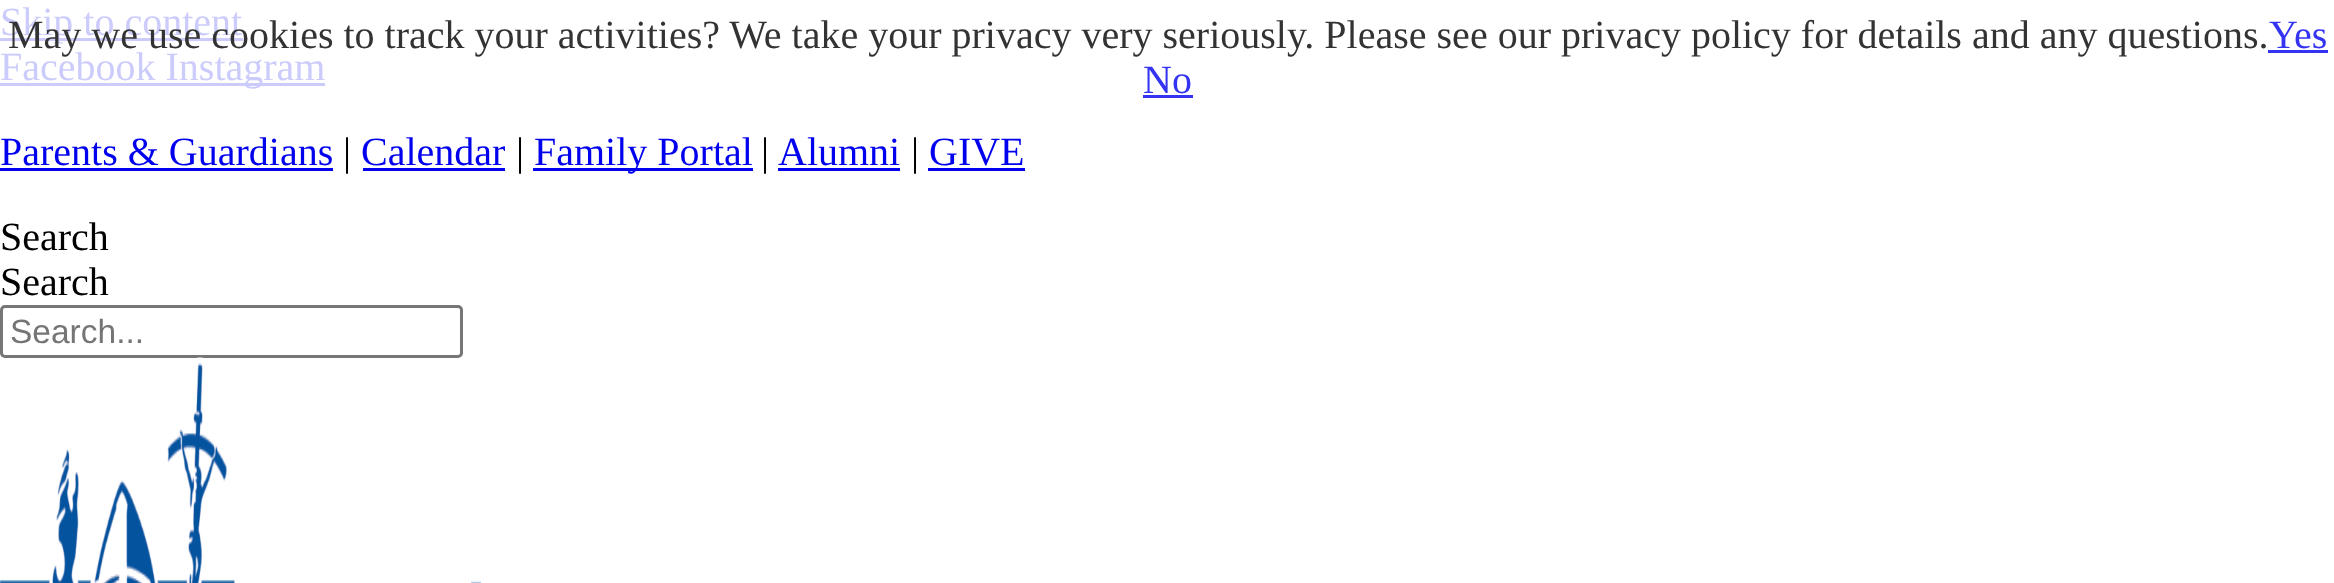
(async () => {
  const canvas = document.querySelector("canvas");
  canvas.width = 2334;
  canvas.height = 583;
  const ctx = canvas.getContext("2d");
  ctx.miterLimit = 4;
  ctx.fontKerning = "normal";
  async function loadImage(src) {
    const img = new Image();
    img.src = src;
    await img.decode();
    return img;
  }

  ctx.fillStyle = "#ffffff";
  ctx.fillRect(0, 0, 2334, 583);
  for (const [x, y, w, h, color] of [
    [0, 38, 243, 3, "#ccccfc"],
    [2268, 50, 60, 3, "#3333f1"],
    [1143, 95, 50, 3, "#3333f1"],
    [0, 83, 325, 3, "#ccccfc"],
    [0, 168, 333, 3, "#0000ee"],
    [363, 168, 142, 3, "#0000ee"],
    [533, 168, 220, 3, "#0000ee"],
    [778, 168, 122, 3, "#0000ee"],
    [928, 168, 97, 3, "#0000ee"],
  ]) {
    ctx.fillStyle = color;
    ctx.fillRect(x, y, w, h);
  }
  ctx.beginPath();
  ctx.roundRect(1.5, 306.5, 460, 50, 3.5);
  ctx.strokeStyle = "#767676";
  ctx.lineWidth = 3;
  ctx.stroke();
  ctx.drawImage(await loadImage("img/1.png"), 0, 357, 482, 226);
  ctx.font = "40px Liberation Serif";
  ctx.fillStyle = "#ccccfc";
  ctx.fillText("Skip to content", 0, 35);
  ctx.fillStyle = "#333333";
  ctx.fillText("May we use cookies to track your activities? We take your privacy very seriously. Please see our privacy policy for details and any questions.", 8, 48);
  ctx.fillStyle = "#3333f1";
  ctx.fillText("Yes", 2269, 48);
  ctx.fillText("No", 1143, 93);
  ctx.fillStyle = "#ccccfc";
  ctx.fillText("Facebook Instagram", 0, 80);
  ctx.fillStyle = "#0000ee";
  ctx.fillText("Parents & Guardians", 0, 165);
  ctx.fillStyle = "#000000";
  ctx.fillText("|", 343, 165);
  ctx.fillStyle = "#0000ee";
  ctx.fillText("Calendar", 361, 165);
  ctx.fillStyle = "#000000";
  ctx.fillText("|", 516, 165);
  ctx.fillStyle = "#0000ee";
  ctx.fillText("Family Portal", 534, 165);
  ctx.fillStyle = "#000000";
  ctx.fillText("|", 761, 165);
  ctx.fillStyle = "#0000ee";
  ctx.fillText("Alumni", 778, 165);
  ctx.fillStyle = "#000000";
  ctx.fillText("|", 911, 165);
  ctx.fillStyle = "#0000ee";
  ctx.fillText("GIVE", 929, 165);
  ctx.fillStyle = "#000000";
  ctx.fillText("Search", 0, 250);
  ctx.fillText("Search", 0, 295);
  ctx.font = "33.5px Liberation Sans";
  ctx.fillStyle = "#757575";
  ctx.fillText("Search...", 10, 343);
})();
